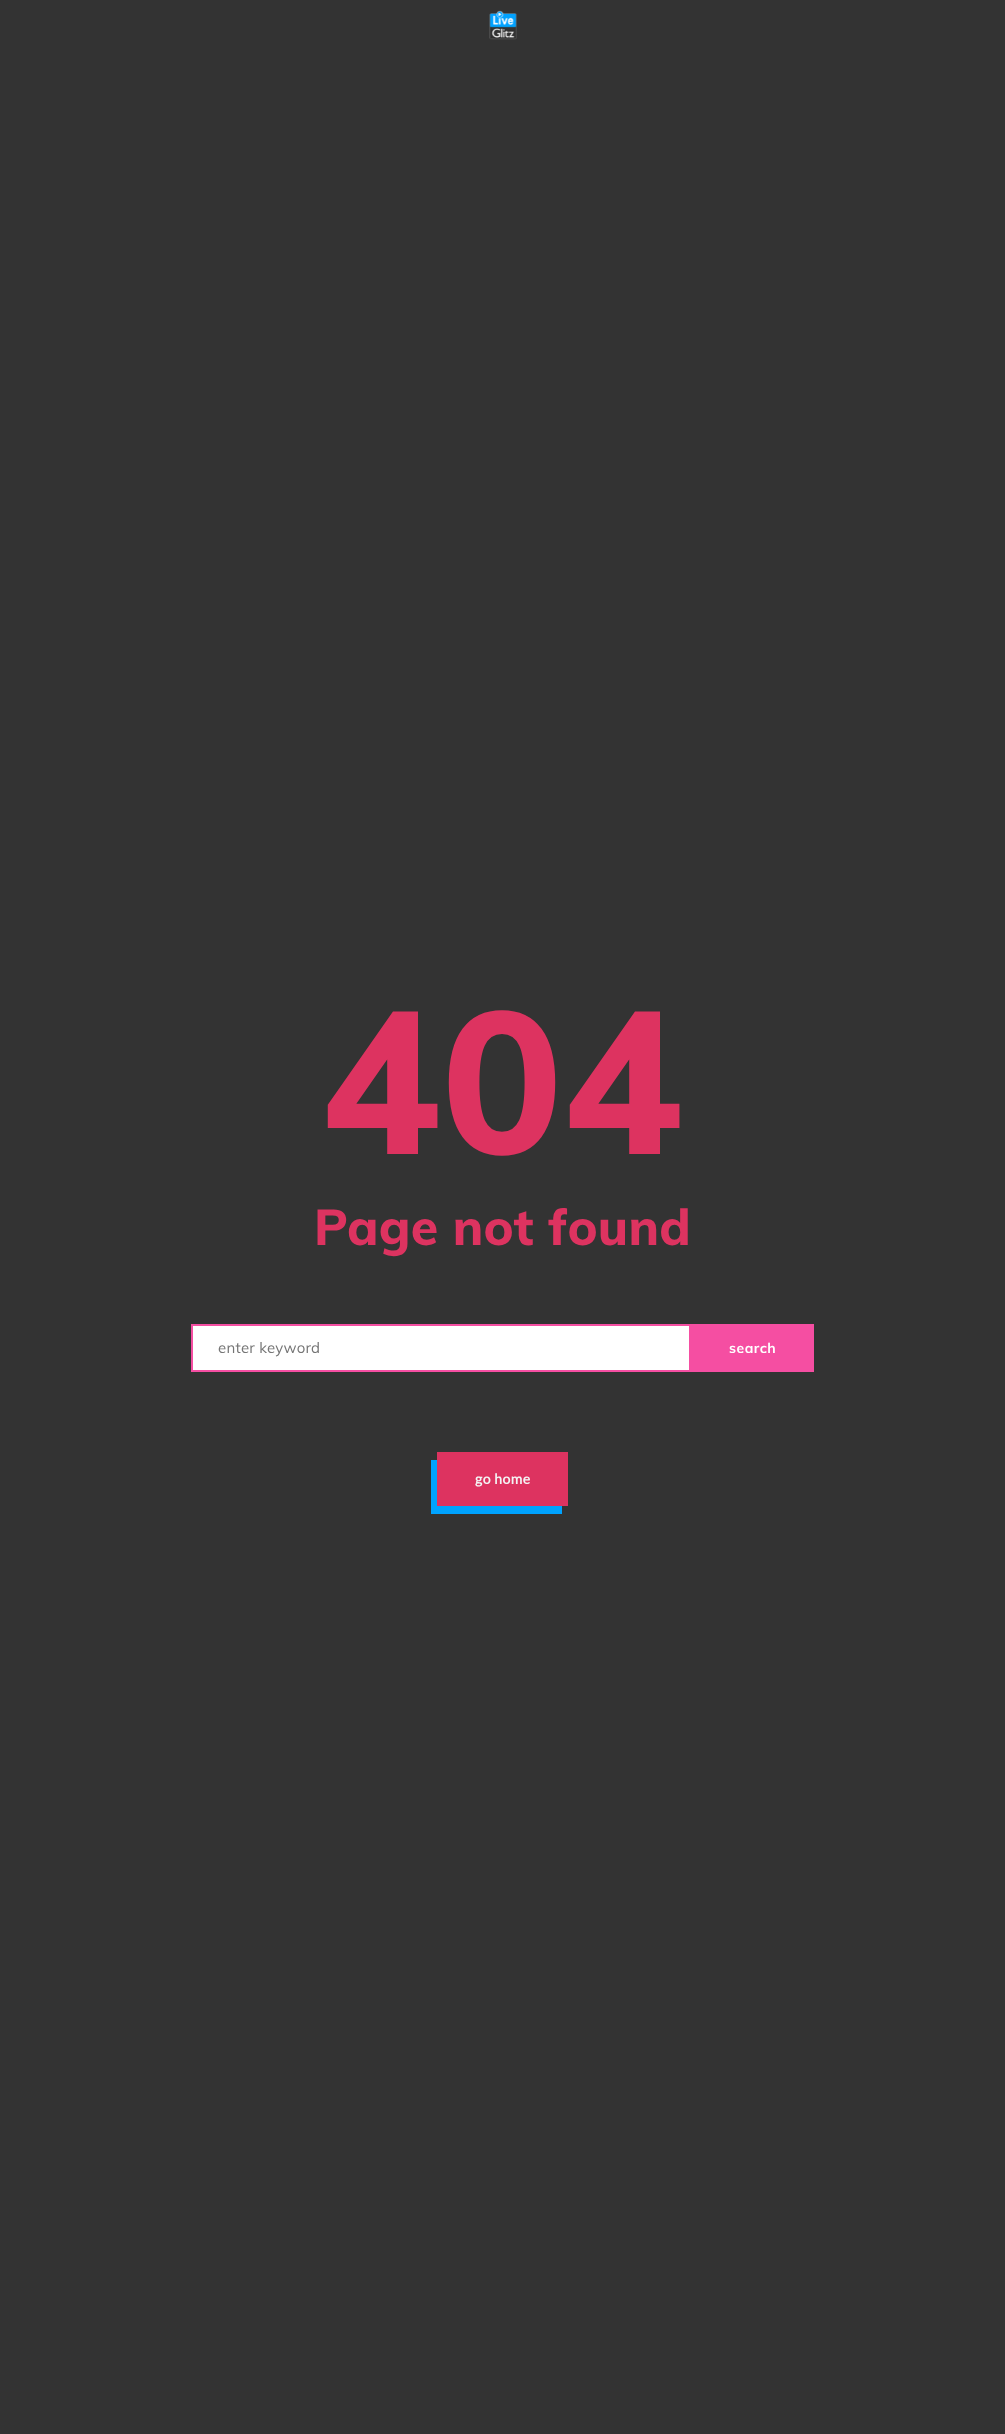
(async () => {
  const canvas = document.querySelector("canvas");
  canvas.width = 1005;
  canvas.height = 2434;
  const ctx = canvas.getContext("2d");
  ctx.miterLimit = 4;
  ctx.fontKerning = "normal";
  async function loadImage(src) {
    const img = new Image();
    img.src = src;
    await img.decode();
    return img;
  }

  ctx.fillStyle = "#333333";
  ctx.fillRect(0, 0, 1005, 2434);
  ctx.drawImage(await loadImage("img/1.png"), 489, 10, 28, 30);
  ctx.fillStyle = "#ffffff";
  ctx.beginPath();
  ctx.rect(192, 1325, 498, 46);
  ctx.fill();
  ctx.strokeStyle = "#f54ea2";
  ctx.lineWidth = 2;
  ctx.stroke();
  for (const [x, y, w, h, color] of [
    [691, 1324, 123, 48, "#f54ea2"],
    [431, 1460, 131, 54, "#00a3ff"],
    [437, 1452, 131, 54, "#dd3360"],
  ]) {
    ctx.fillStyle = color;
    ctx.fillRect(x, y, w, h);
  }
  ctx.letterSpacing = "1px";
  ctx.font = "800 200px Muli";
  ctx.fillText("404", 321, 1154);
  ctx.letterSpacing = "0.25px";
  ctx.font = "800 50px Muli";
  ctx.fillText("Page not found", 314, 1245);
  ctx.font = "15px Muli";
  ctx.fillStyle = "#757575";
  ctx.fillText("enter keyword", 218, 1353);
  ctx.letterSpacing = "0.5px";
  ctx.font = "bold 14px Muli";
  ctx.fillStyle = "#ffffff";
  ctx.fillText("search", 729, 1353);
  ctx.font = "bold 14px Lato";
  ctx.fillStyle = "#f4f4f4";
  ctx.fillText("go home", 475, 1484);
})();
